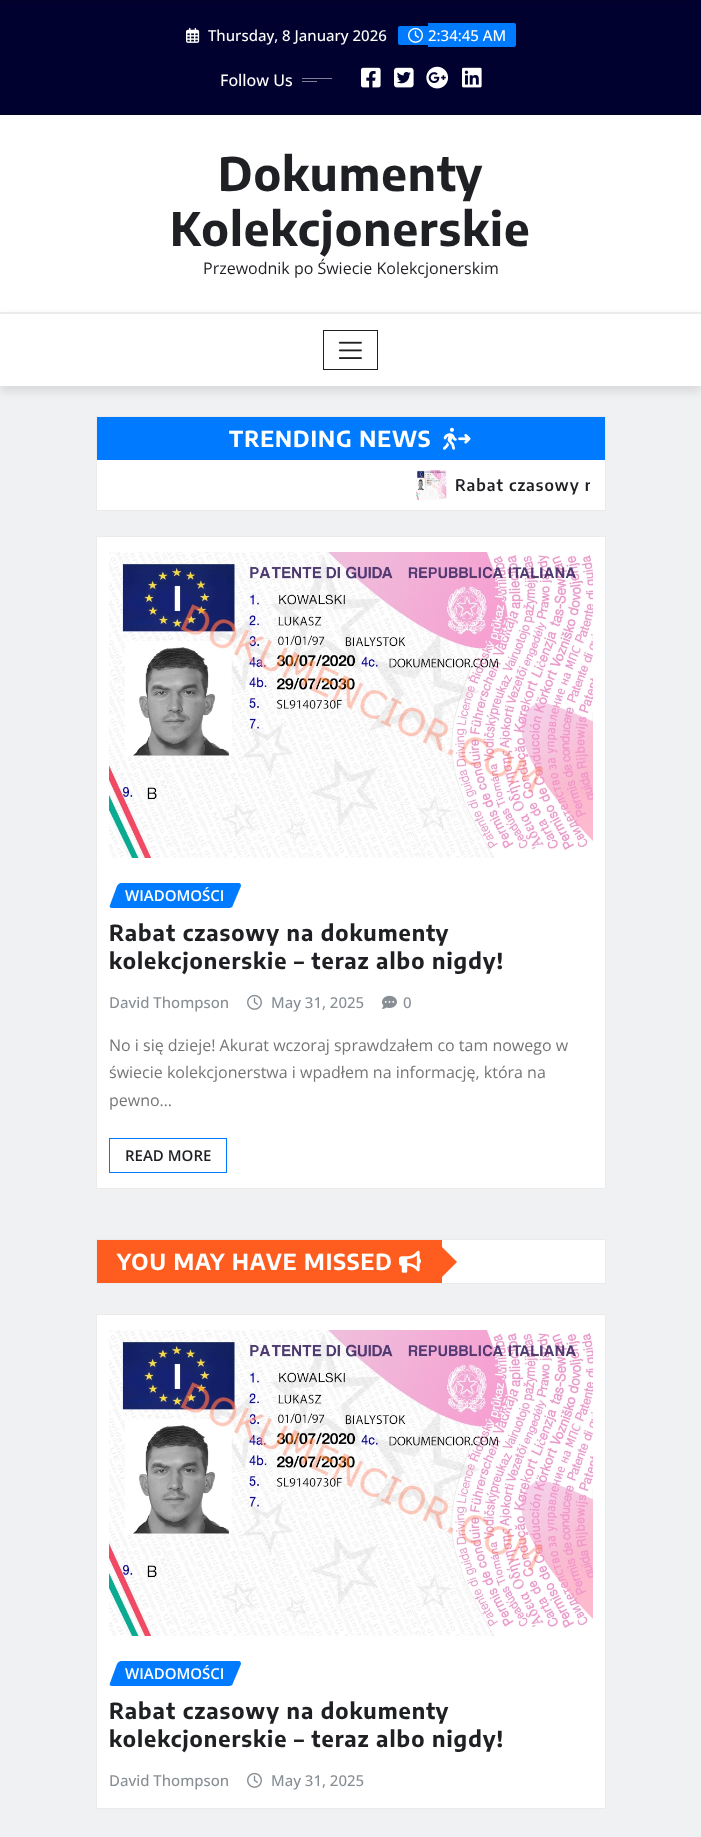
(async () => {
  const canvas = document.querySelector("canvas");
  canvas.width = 701;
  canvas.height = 1837;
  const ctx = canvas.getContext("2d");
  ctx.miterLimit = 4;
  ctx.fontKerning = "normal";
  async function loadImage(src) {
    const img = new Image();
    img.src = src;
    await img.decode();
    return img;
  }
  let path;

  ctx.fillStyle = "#f0f1f3";
  ctx.fillRect(0, 0, 701, 1837);
  for (const [x, y, w, h, color] of [
    [0, 1, 701, 113, "#01012f"],
    [0, 0, 701, 1, "#01012a"],
    [0, 114, 701, 1, "#01012a"],
  ]) {
    ctx.fillStyle = color;
    ctx.fillRect(x, y, w, h);
  }
  ctx.drawImage(await loadImage("img/1.png"), 186, 27, 14, 16);
  ctx.fillStyle = "#007bff";
  ctx.beginPath();
  ctx.roundRect(398, 26, 30, 19, [2, 0, 0, 2]);
  ctx.fill();
  ctx.drawImage(await loadImage("img/2.png"), 408, 27, 15, 16);
  ctx.beginPath();
  ctx.roundRect(428, 23, 88, 24, [0, 2, 2, 0]);
  ctx.fill();
  ctx.fillStyle = "#808097";
  ctx.fillRect(302, 78, 30, 1);
  ctx.fillRect(302, 81, 15, 1);
  ctx.drawImage(await loadImage("img/3.png"), 361, 67, 20, 21);
  ctx.drawImage(await loadImage("img/4.png"), 394, 67, 20, 21);
  ctx.drawImage(await loadImage("img/5.png"), 426, 66, 23, 23);
  ctx.drawImage(await loadImage("img/6.png"), 462, 67, 20, 21);
  ctx.fillStyle = "#ffffff";
  ctx.fillRect(0, 115, 701, 197);
  ctx.fillStyle = "rgba(0, 0, 0, 0.1)";
  ctx.filter = "blur(5px)";
  ctx.beginPath();
  ctx.rect(0, 317, 701, 74);
  ctx.fill();
  ctx.filter = "none";
  ctx.fillStyle = "#ffffff";
  ctx.fillRect(0, 314, 701, 72);
  ctx.fillStyle = "#ebebeb";
  ctx.fillRect(0, 312, 701, 2);
  ctx.strokeStyle = "#1f2024";
  ctx.strokeRect(323.5, 330.5, 54, 39);
  ctx.drawImage(await loadImage("img/7.png"), 338, 341, 24, 18);
  ctx.fillStyle = "#ffffff";
  ctx.fillRect(97, 460, 508, 50);
  ctx.strokeStyle = "#ebebeb";
  ctx.strokeRect(96.5, 416.5, 509, 94);
  ctx.fillStyle = "#007bff";
  ctx.fillRect(97, 417, 508, 43);
  ctx.drawImage(await loadImage("img/8.png"), 443, 427, 28, 23);
  ctx.drawImage(await loadImage("img/9.png"), 416, 470, 31, 30);
  ctx.fillStyle = "#ffffff";
  ctx.beginPath();
  ctx.rect(96.5, 536.5, 509, 652);
  ctx.fill();
  ctx.stroke();
  ctx.drawImage(await loadImage("img/10.png"), 109, 552, 484, 306);
  ctx.fillStyle = "#007bff";
  path = new Path2D("M121 883H239C240 883 241 884 241 886L233 905C233 907 231 908 229 908H112C110 908 109 907 110 905L117 886C118 884 120 883 121 883Z");
  ctx.fill(path);
  ctx.drawImage(await loadImage("img/11.png"), 247, 994, 15, 16);
  ctx.drawImage(await loadImage("img/12.png"), 382, 995, 15, 14);
  ctx.strokeStyle = "#007bff";
  ctx.strokeRect(109.5, 1138.5, 117, 34);
  ctx.fillStyle = "#ffffff";
  ctx.fillRect(442, 1240, 163, 43);
  ctx.strokeStyle = "#ebebeb";
  ctx.strokeRect(96.5, 1239.5, 509, 44);
  ctx.fillStyle = "#ff5d20";
  ctx.fillRect(97, 1240, 345, 43);
  ctx.drawImage(await loadImage("img/13.png"), 399, 1250, 22, 23);
  path = new Path2D("M442 1277V1247L457 1262Z");
  ctx.fill(path);
  ctx.fillStyle = "#ffffff";
  ctx.beginPath();
  ctx.rect(96.5, 1314.5, 509, 494);
  ctx.fill();
  ctx.stroke();
  ctx.drawImage(await loadImage("img/14.png"), 109, 1330, 484, 306);
  ctx.fillStyle = "#007bff";
  path = new Path2D("M121 1661H239C240 1661 241 1662 241 1664L233 1683C233 1685 231 1686 229 1686H112C110 1686 109 1685 110 1683L117 1664C118 1662 120 1661 121 1661Z");
  ctx.fill(path);
  ctx.drawImage(await loadImage("img/11.png"), 247, 1772, 15, 16);
  ctx.font = "500 15px Open Sans";
  ctx.fillStyle = "#ffffff";
  ctx.fillText("Thursday, 8 January 2026", 208, 41);
  ctx.fillText("2:34:45 AM", 428, 41);
  ctx.font = "500 16px Open Sans";
  ctx.fillText("Follow Us", 220, 86);
  ctx.letterSpacing = "1px";
  ctx.font = "bold 46px Encode Sans Condensed";
  ctx.fillStyle = "#1f2024";
  ctx.fillText("Dokumenty", 218, 191);
  ctx.fillText("Kolekcjonerskie", 170, 246);
  ctx.letterSpacing = "0px";
  ctx.font = "16px Open Sans";
  ctx.fillText("Przewodnik po Świecie Kolekcjonerskim", 203, 274);
  ctx.letterSpacing = "1px";
  ctx.font = "bold 22px Encode Sans Condensed";
  ctx.fillStyle = "#ffffff";
  ctx.fillText("TRENDING NEWS", 229, 447);
  ctx.save();
  ctx.beginPath();
  ctx.rect(112, 470, 478, 30);
  ctx.clip();
  ctx.font = "600 16px Encode Sans Condensed";
  ctx.fillStyle = "#1f2024";
  ctx.fillText("Rabat czasowy n", 455, 491);
  ctx.restore();
  ctx.letterSpacing = "0px";
  ctx.font = "600 15px Open Sans";
  ctx.fillText("WIADOMOŚCI", 125, 901);
  ctx.letterSpacing = "1px";
  ctx.font = "bold 22px Encode Sans Condensed";
  ctx.fillStyle = "#1f2024";
  ctx.fillText("Rabat czasowy na dokumenty", 109, 941);
  ctx.fillText("kolekcjonerskie – teraz albo nigdy!", 109, 969);
  ctx.letterSpacing = "0px";
  ctx.font = "500 15px Open Sans";
  ctx.fillStyle = "#878e94";
  for (const [text, x, y] of [
    ["David Thompson", 109, 1008],
    ["May 31, 2025", 271, 1008],
    ["0", 403, 1008],
  ]) {
    ctx.fillText(text, x, y);
  }
  ctx.font = "16px Open Sans";
  ctx.fillStyle = "#767676";
  for (const [text, x, y] of [
    ["No i się dzieje! Akurat wczoraj sprawdzałem co tam nowego w", 109, 1051],
    ["świecie kolekcjonerstwa i wpadłem na informację, która na", 109, 1078],
    ["pewno…", 109, 1106],
  ]) {
    ctx.fillText(text, x, y);
  }
  ctx.font = "600 15px Open Sans";
  ctx.fillStyle = "#1f2024";
  ctx.fillText("READ MORE", 125, 1161);
  ctx.letterSpacing = "1px";
  ctx.font = "bold 22px Encode Sans Condensed";
  ctx.fillStyle = "#ffffff";
  ctx.fillText("YOU MAY HAVE MISSED", 117, 1270);
  ctx.letterSpacing = "0px";
  ctx.font = "600 15px Open Sans";
  ctx.fillText("WIADOMOŚCI", 125, 1679);
  ctx.letterSpacing = "1px";
  ctx.font = "bold 22px Encode Sans Condensed";
  ctx.fillStyle = "#1f2024";
  ctx.fillText("Rabat czasowy na dokumenty", 109, 1719);
  ctx.fillText("kolekcjonerskie – teraz albo nigdy!", 109, 1747);
  ctx.letterSpacing = "0px";
  ctx.font = "500 15px Open Sans";
  ctx.fillStyle = "#878e94";
  ctx.fillText("David Thompson", 109, 1786);
  ctx.fillText("May 31, 2025", 271, 1786);
})();
